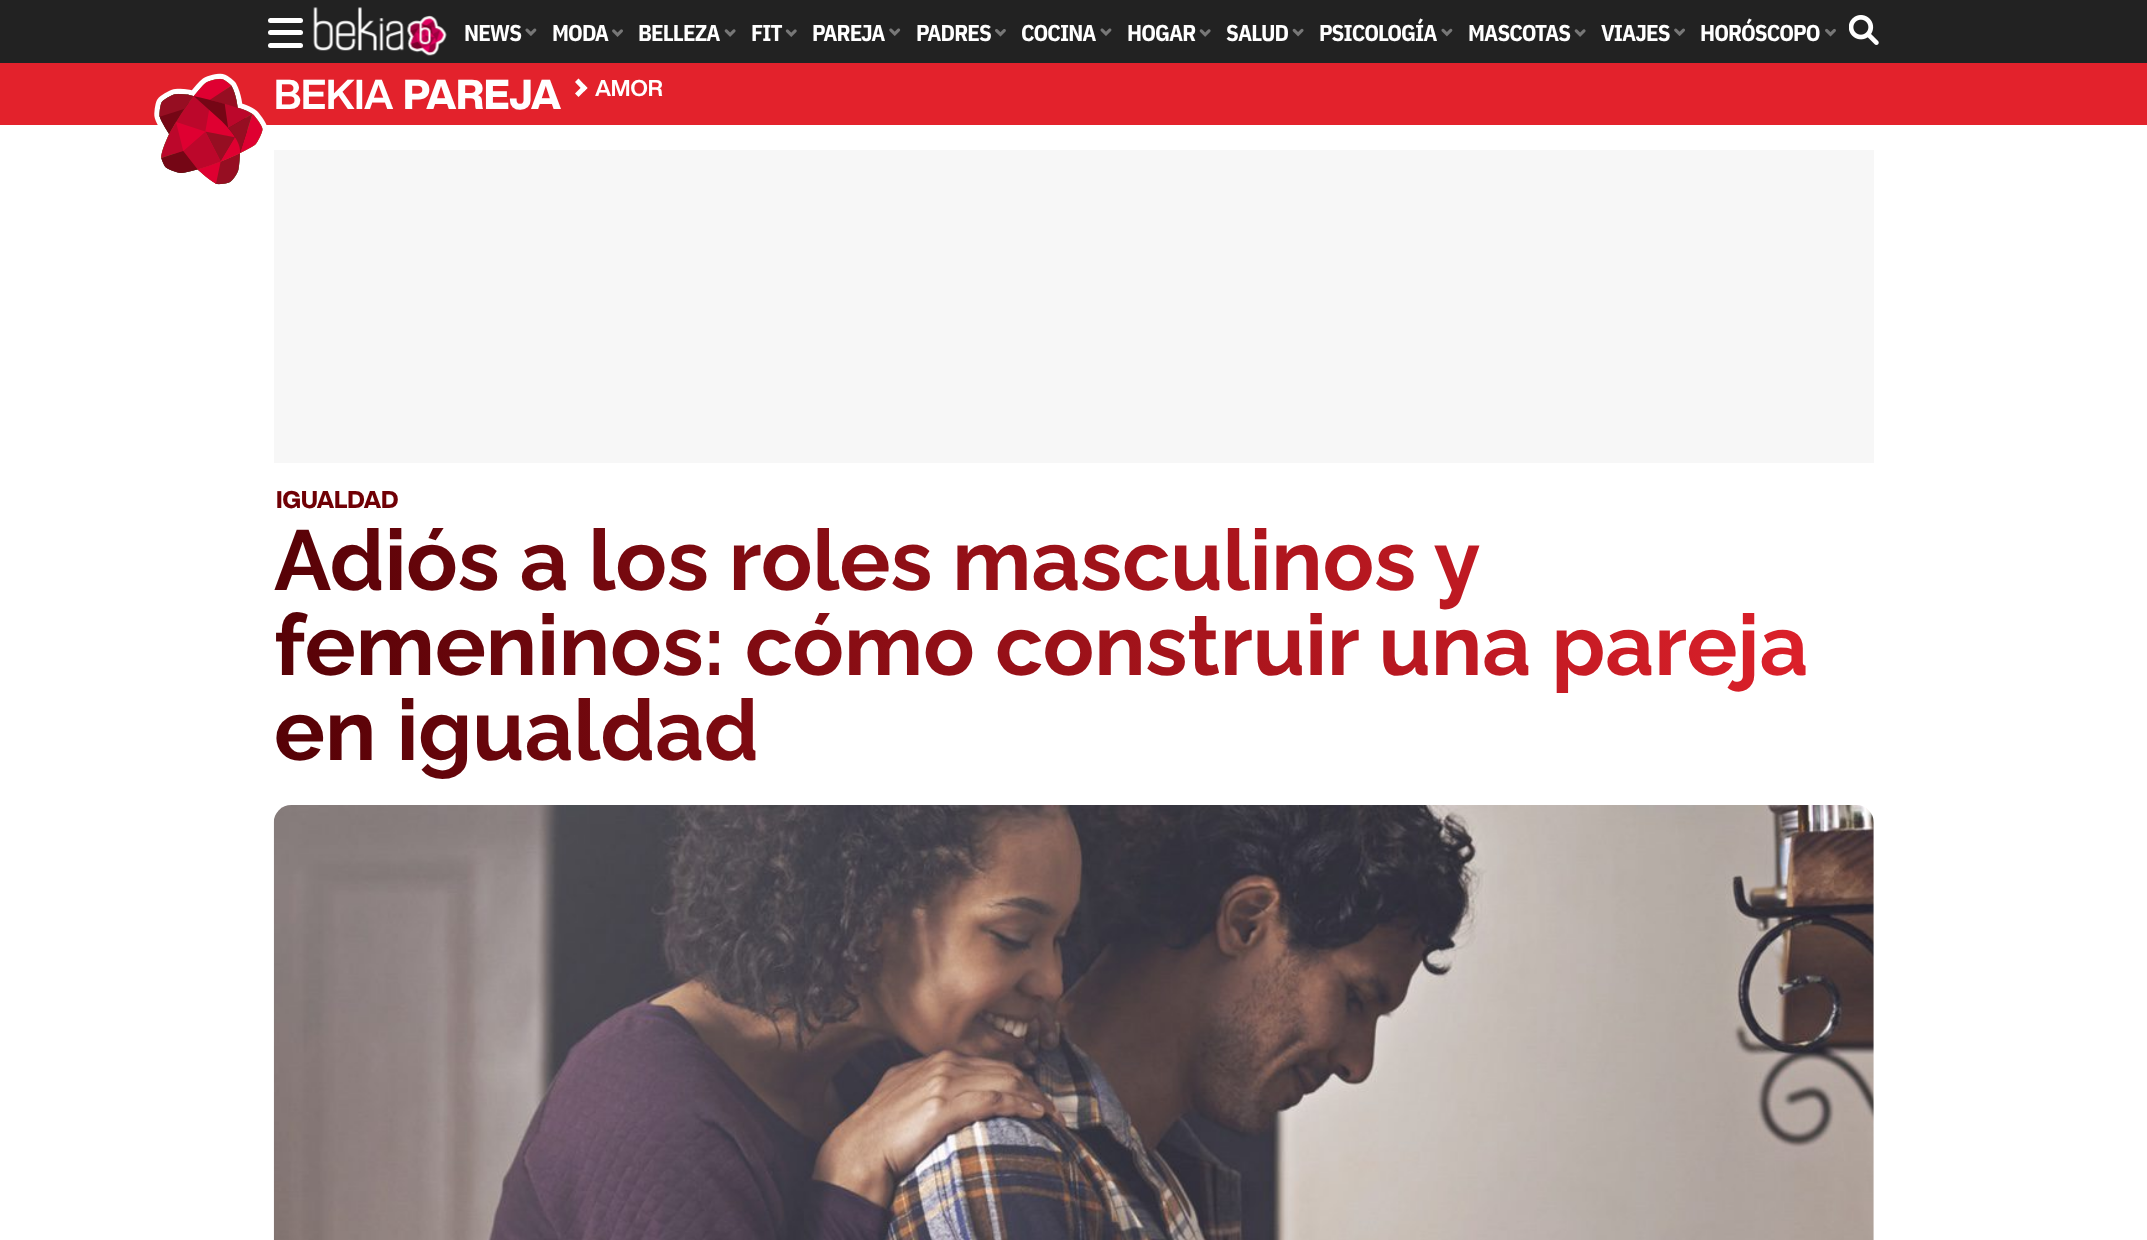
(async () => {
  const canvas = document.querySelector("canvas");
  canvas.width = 2147;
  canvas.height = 1240;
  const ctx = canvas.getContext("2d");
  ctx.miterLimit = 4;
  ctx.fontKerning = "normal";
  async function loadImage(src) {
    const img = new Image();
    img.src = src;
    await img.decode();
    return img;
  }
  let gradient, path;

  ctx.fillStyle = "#ffffff";
  ctx.fillRect(0, 0, 2147, 1240);
  ctx.fillStyle = "#222222";
  ctx.fillRect(0, 0, 2147, 63);
  ctx.fillStyle = "#ffffff";
  ctx.beginPath();
  ctx.roundRect(268, 18, 35, 5, 2.5);
  ctx.fill();
  ctx.beginPath();
  ctx.roundRect(268, 30, 35, 5, 2.5);
  ctx.fill();
  ctx.beginPath();
  ctx.roundRect(268, 43, 35, 5, 2.5);
  ctx.fill();
  ctx.drawImage(await loadImage("img/1.png"), 313, 7, 134, 49);
  ctx.drawImage(await loadImage("img/2.png"), 525, 28, 12, 8);
  ctx.drawImage(await loadImage("img/3.png"), 612, 29, 11, 8);
  ctx.drawImage(await loadImage("img/4.png"), 724, 29, 12, 8);
  ctx.drawImage(await loadImage("img/5.png"), 785, 29, 12, 8);
  ctx.drawImage(await loadImage("img/6.png"), 889, 28, 12, 8);
  ctx.drawImage(await loadImage("img/7.png"), 995, 29, 11, 8);
  ctx.drawImage(await loadImage("img/8.png"), 1100, 28, 12, 8);
  ctx.drawImage(await loadImage("img/9.png"), 1199, 29, 12, 8);
  ctx.drawImage(await loadImage("img/10.png"), 1292, 28, 12, 9);
  ctx.drawImage(await loadImage("img/11.png"), 1441, 28, 12, 9);
  ctx.drawImage(await loadImage("img/4.png"), 1574, 29, 12, 8);
  ctx.drawImage(await loadImage("img/12.png"), 1674, 28, 11, 8);
  ctx.drawImage(await loadImage("img/13.png"), 1825, 28, 11, 9);
  ctx.drawImage(await loadImage("img/14.png"), 1849, 15, 30, 30);
  ctx.fillStyle = "#e3222c";
  ctx.fillRect(0, 63, 2147, 62);
  ctx.drawImage(await loadImage("img/15.png"), 154, 73, 113, 112);
  ctx.fillStyle = "#ffffff";
  path = new Path2D("M578.5 78.5L587.5 88L584 91.5L575 82Z");
  ctx.fill(path);
  path = new Path2D("M584 84.5L587.5 88L578.5 97L575 93.5Z");
  ctx.fill(path);
  ctx.fillStyle = "#f7f7f7";
  ctx.fillRect(274, 150, 1600, 313);
  ctx.drawImage(await loadImage("img/16.png"), 273, 805, 1601, 435);
  ctx.letterSpacing = "-0.9px";
  ctx.font = "bold 23px IBM Plex Sans Condensed";
  ctx.fillStyle = "#ffffff";
  for (const [text, x, y] of [
    ["NEWS", 464, 41],
    ["MODA", 552, 41],
    ["BELLEZA", 638, 41],
    ["FIT", 751, 41],
    ["PAREJA", 812, 41],
    ["PADRES", 916, 41],
    ["COCINA", 1021, 41],
    ["HOGAR", 1127, 41],
    ["SALUD", 1226, 41],
    ["PSICOLOGÍA", 1319, 41],
    ["MASCOTAS", 1468, 41],
    ["VIAJES", 1601, 41],
    ["HORÓSCOPO", 1700, 41],
  ]) {
    ctx.fillText(text, x, y);
  }
  ctx.letterSpacing = "0px";
  ctx.font = "bold 41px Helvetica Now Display";
  ctx.fillText("BEKIA", 274, 109);
  ctx.font = "800 41px Helvetica Now Display";
  ctx.fillText("PAREJA", 403, 109);
  ctx.font = "bold 22.5px Helvetica Now Display";
  ctx.fillText("AMOR", 595, 96);
  ctx.font = "800 23.75px Helvetica Now Display";
  ctx.fillStyle = "#700005";
  ctx.fillText("IGUALDAD", 276, 508);
  ctx.wordSpacing = "-0.5px";
  ctx.font = "bold 85px Raleway";
  gradient = ctx.createLinearGradient(271, 765, 1877, 539);
  gradient.addColorStop(0, "#550106");
  gradient.addColorStop(1, "#e3222c");
  ctx.fillStyle = gradient;
  ctx.fillText("Adiós a los roles masculinos y", 274, 590);
  ctx.wordSpacing = "0px";
  ctx.fillText("femeninos: cómo construir una pareja", 274, 675);
  ctx.fillText("en igualdad", 274, 760);
})();
